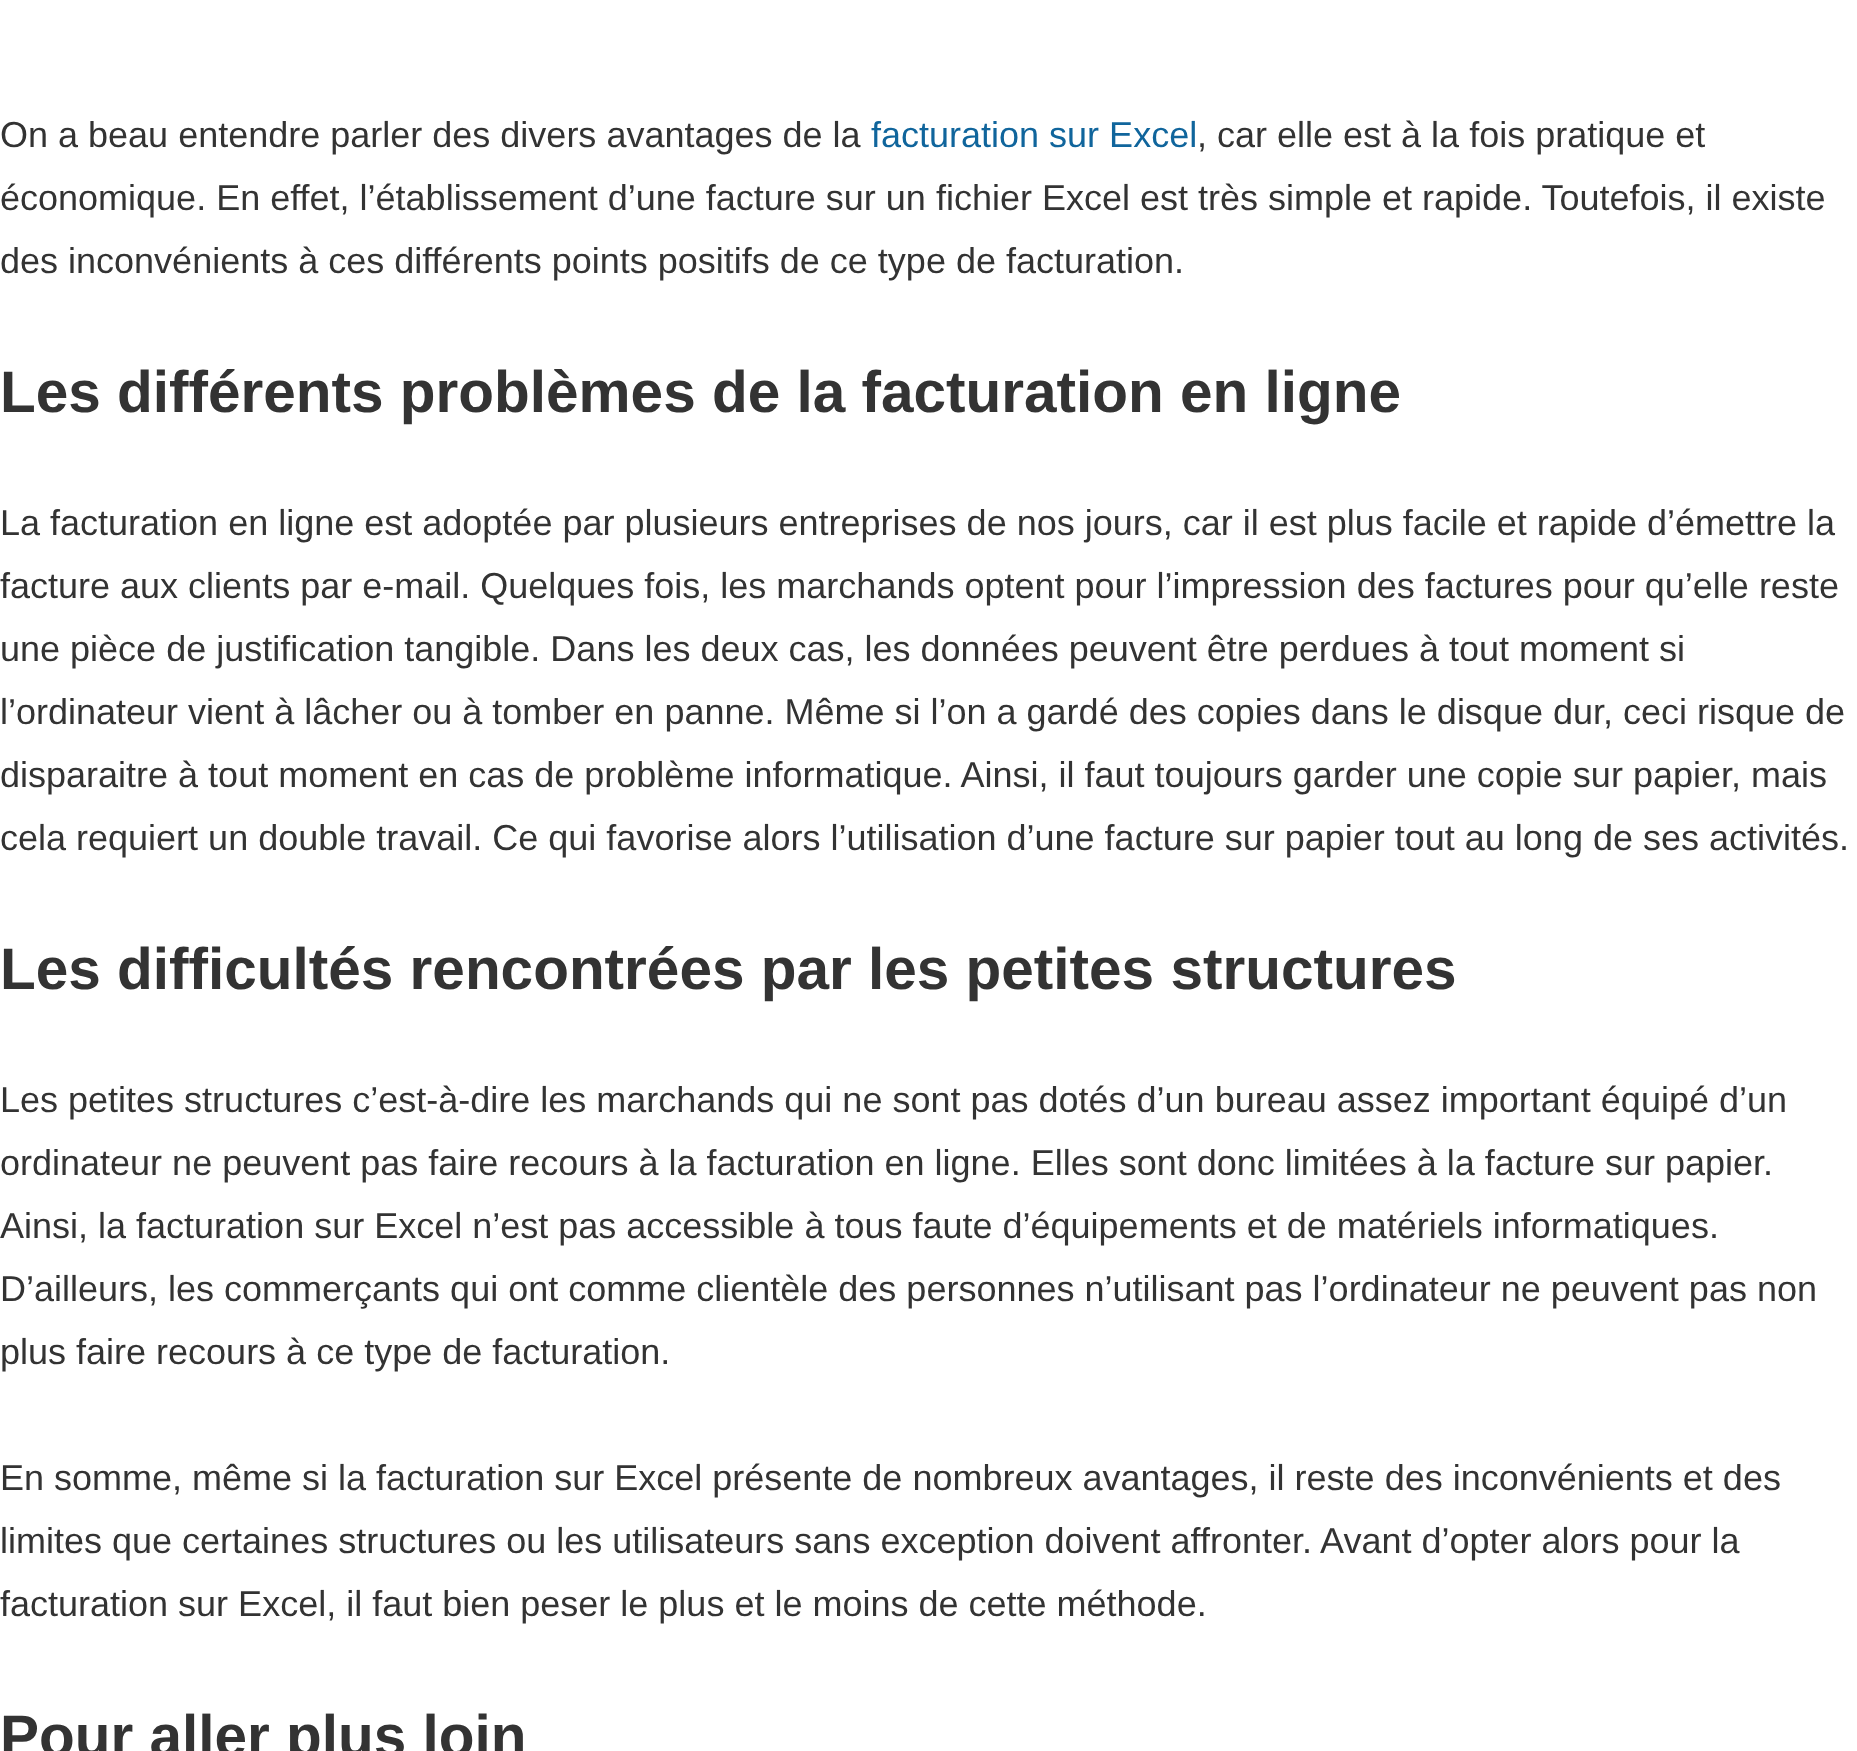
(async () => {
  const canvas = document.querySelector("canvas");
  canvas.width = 1857;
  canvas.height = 1751;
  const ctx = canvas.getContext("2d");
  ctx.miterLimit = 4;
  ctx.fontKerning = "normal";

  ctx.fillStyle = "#ffffff";
  ctx.fillRect(0, 0, 1857, 1751);
  ctx.font = "36px Liberation Sans";
  ctx.fillStyle = "#333333";
  ctx.fillText("On a beau entendre parler des divers avantages de la", 0, 147);
  ctx.fillStyle = "#10659c";
  ctx.fillText("facturation sur Excel", 871, 147);
  ctx.fillStyle = "#333333";
  for (const [text, x, y] of [
    [", car elle est à la fois pratique et", 1197, 147],
    ["économique. En effet, l’établissement d’une facture sur un fichier Excel est très simple et rapide. Toutefois, il existe", 0, 210],
    ["des inconvénients à ces différents points positifs de ce type de facturation.", 0, 273],
  ]) {
    ctx.fillText(text, x, y);
  }
  ctx.font = "bold 58.5px Liberation Sans";
  ctx.fillText("Les différents problèmes de la facturation en ligne", 0, 412);
  ctx.font = "36px Liberation Sans";
  for (const [text, x, y] of [
    ["La facturation en ligne est adoptée par plusieurs entreprises de nos jours, car il est plus facile et rapide d’émettre la", 0, 535],
    ["facture aux clients par e-mail. Quelques fois, les marchands optent pour l’impression des factures pour qu’elle reste", 0, 598],
    ["une pièce de justification tangible. Dans les deux cas, les données peuvent être perdues à tout moment si", 0, 661],
    ["l’ordinateur vient à lâcher ou à tomber en panne. Même si l’on a gardé des copies dans le disque dur, ceci risque de", 0, 724],
    ["disparaitre à tout moment en cas de problème informatique. Ainsi, il faut toujours garder une copie sur papier, mais", 0, 787],
    ["cela requiert un double travail. Ce qui favorise alors l’utilisation d’une facture sur papier tout au long de ses activités.", 0, 850],
  ]) {
    ctx.fillText(text, x, y);
  }
  ctx.font = "bold 58.5px Liberation Sans";
  ctx.fillText("Les difficultés rencontrées par les petites structures", 0, 989);
  ctx.font = "36px Liberation Sans";
  for (const [text, x, y] of [
    ["Les petites structures c’est-à-dire les marchands qui ne sont pas dotés d’un bureau assez important équipé d’un", 0, 1112],
    ["ordinateur ne peuvent pas faire recours à la facturation en ligne. Elles sont donc limitées à la facture sur papier.", 0, 1175],
    ["Ainsi, la facturation sur Excel n’est pas accessible à tous faute d’équipements et de matériels informatiques.", 0, 1238],
    ["D’ailleurs, les commerçants qui ont comme clientèle des personnes n’utilisant pas l’ordinateur ne peuvent pas non", 0, 1301],
    ["plus faire recours à ce type de facturation.", 0, 1364],
    ["En somme, même si la facturation sur Excel présente de nombreux avantages, il reste des inconvénients et des", 0, 1490],
    ["limites que certaines structures ou les utilisateurs sans exception doivent affronter. Avant d’opter alors pour la", 0, 1553],
    ["facturation sur Excel, il faut bien peser le plus et le moins de cette méthode.", 0, 1616],
  ]) {
    ctx.fillText(text, x, y);
  }
  ctx.font = "bold 58.5px Liberation Sans";
  ctx.fillText("Pour aller plus loin", 0, 1756);
})();
